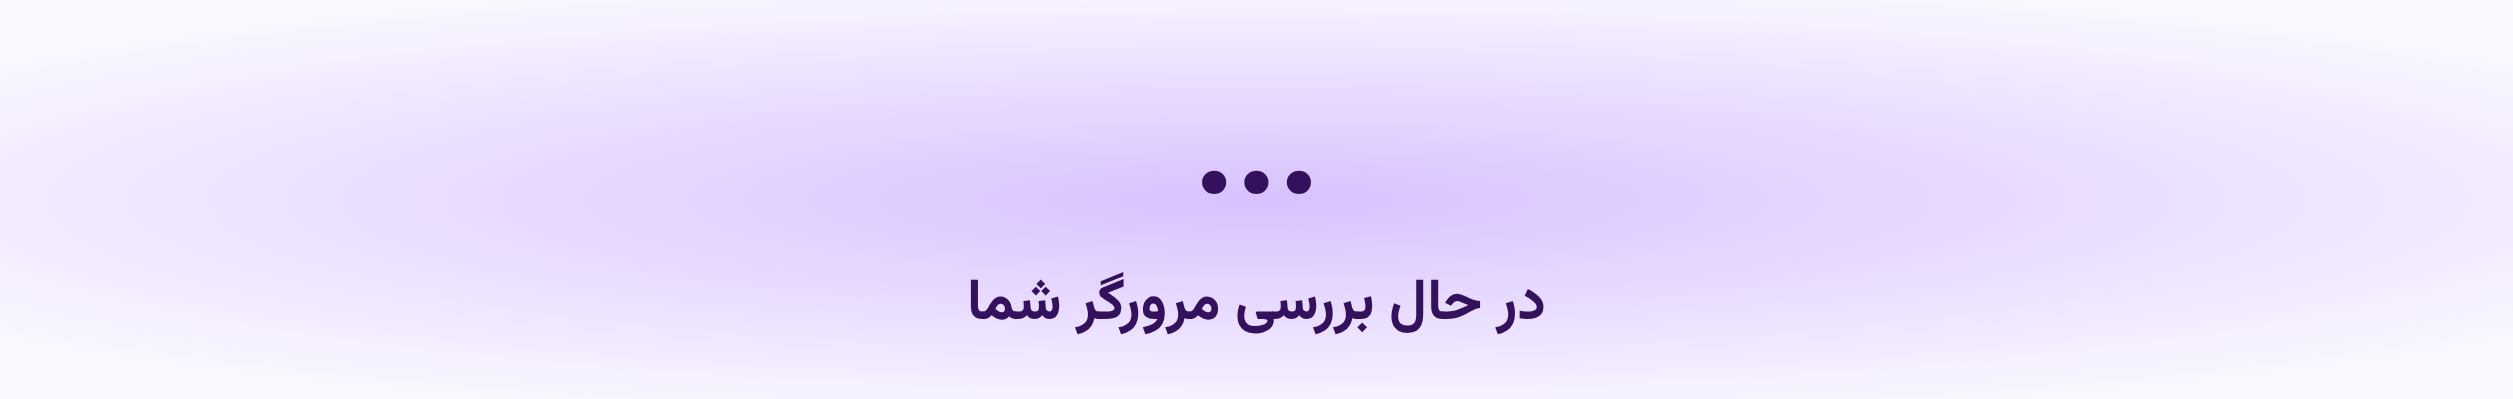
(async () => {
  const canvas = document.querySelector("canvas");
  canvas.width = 2513;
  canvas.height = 399;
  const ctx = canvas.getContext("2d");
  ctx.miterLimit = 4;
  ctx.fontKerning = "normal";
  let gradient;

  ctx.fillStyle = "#ffffff";
  ctx.fillRect(0, 0, 2513, 399);
  gradient = ctx.createRadialGradient(1257, 1425.78, 0, 1257, 1425.78, 1604);
  gradient.addColorStop(0, "#d8c1ff");
  gradient.addColorStop(1, "#faf7ff");
  ctx.fillStyle = gradient;
  ctx.beginPath();
  ctx.rect(0, 0, 2513, 399);
  ctx.save();
  ctx.clip();
  ctx.scale(1, 225 / 1604);
  ctx.fillRect(0, 0, 2513, 2845);
  ctx.restore();
  ctx.font = "bold 142px Vazirmatn";
  ctx.fillStyle = "#33115d";
  ctx.fillText("...", 1193, 194);
  ctx.direction = "rtl";
  ctx.font = "bold 57.5px Vazirmatn";
  ctx.fillText("در حال بررسی مرورگر شما", 1546, 319);
})();
